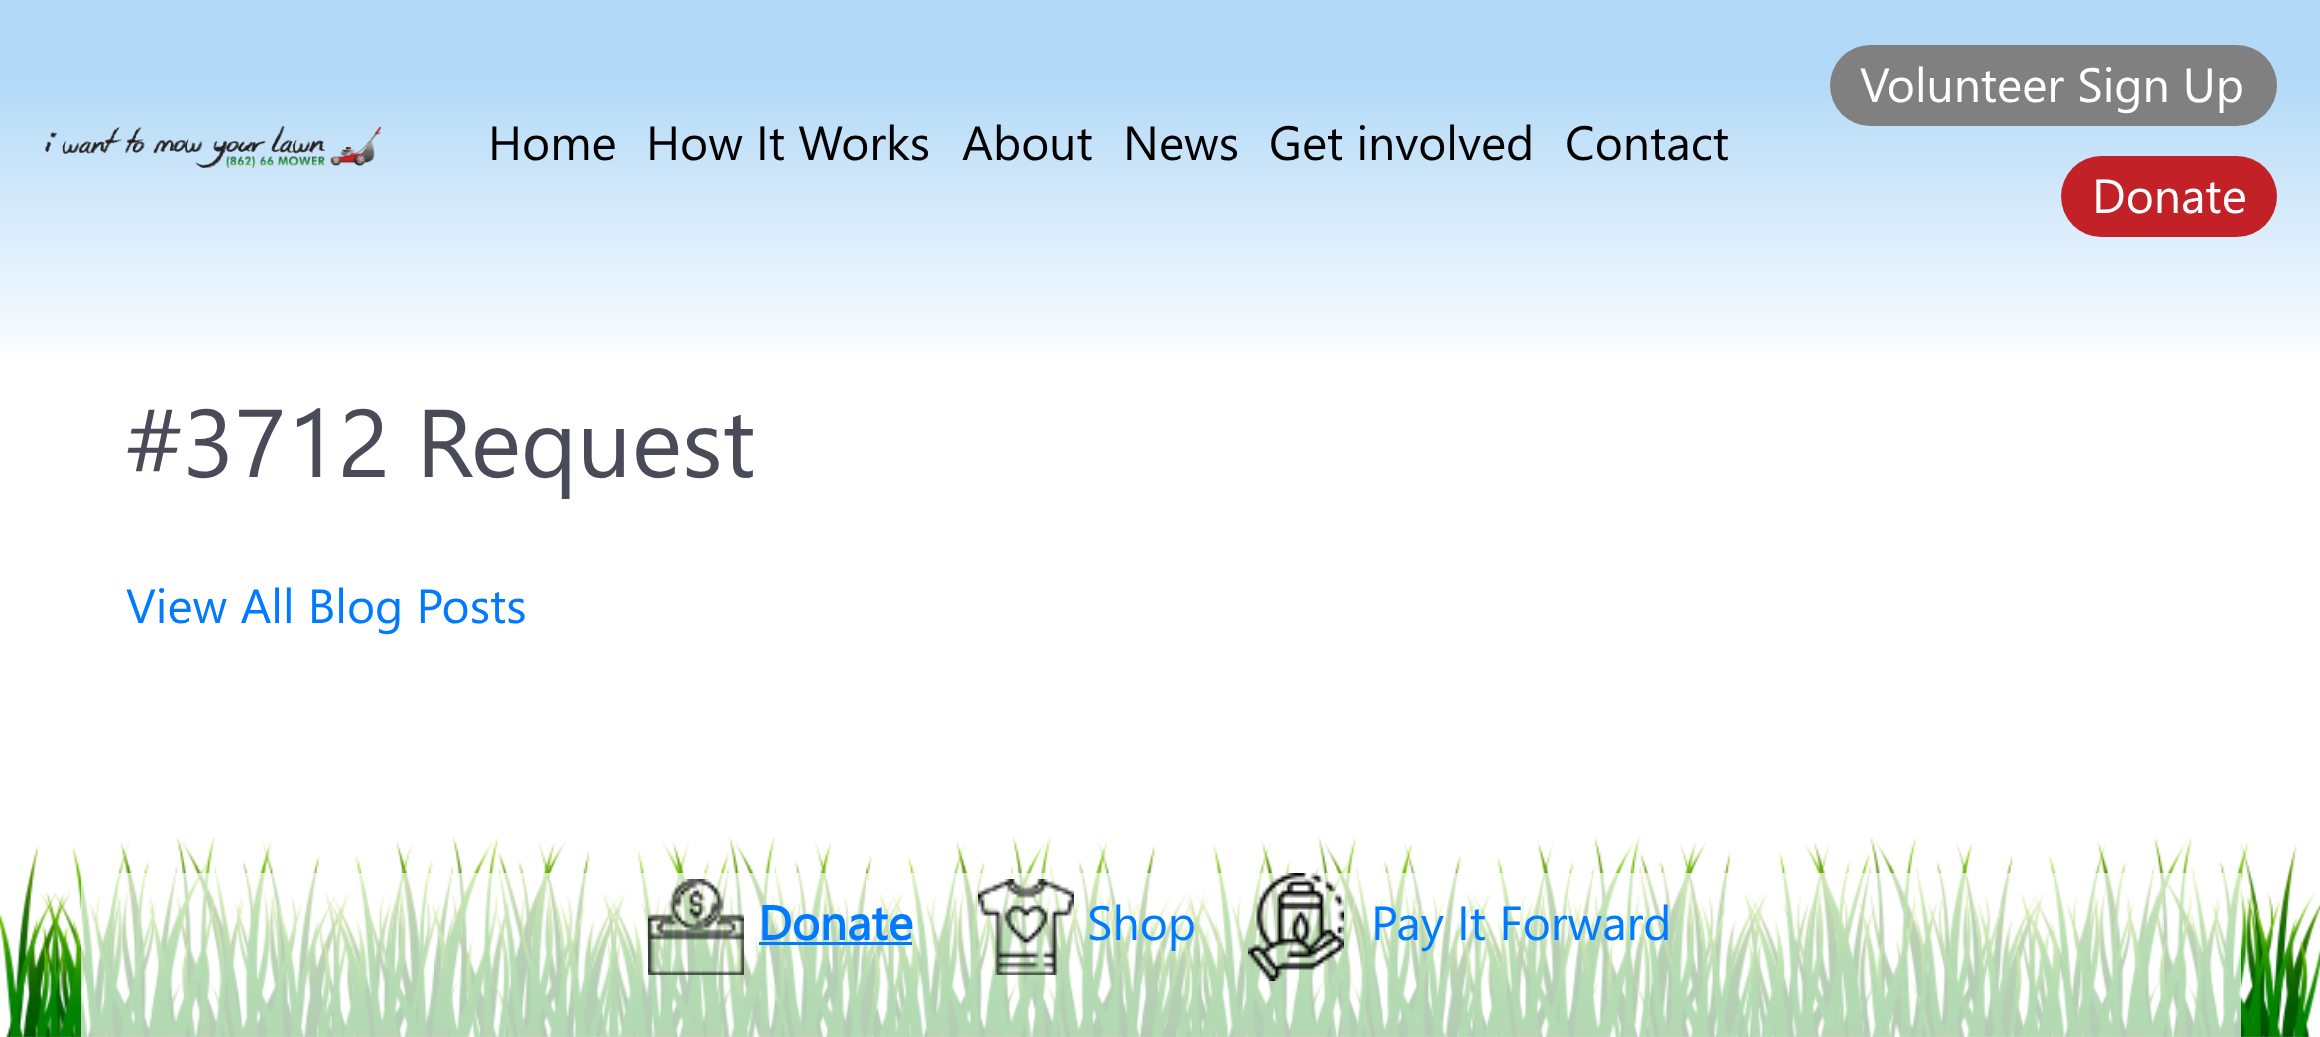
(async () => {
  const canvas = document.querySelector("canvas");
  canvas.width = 2320;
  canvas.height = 1037;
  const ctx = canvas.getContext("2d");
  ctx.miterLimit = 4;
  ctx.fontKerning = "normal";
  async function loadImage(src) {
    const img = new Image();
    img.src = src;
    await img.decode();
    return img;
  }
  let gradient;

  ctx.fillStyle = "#ffffff";
  ctx.fillRect(0, 0, 2320, 1037);
  gradient = ctx.createLinearGradient(1161, 0, 1161, 372);
  gradient.addColorStop(0.2, "#b2d9f7");
  gradient.addColorStop(1, "#ffffff");
  ctx.fillStyle = gradient;
  ctx.fillRect(0, 0, 2320, 362);
  ctx.drawImage(await loadImage("img/1.png"), 45, 126, 336, 42);
  ctx.fillStyle = "#808080";
  ctx.beginPath();
  ctx.roundRect(1830, 45, 447, 81, 40.5);
  ctx.fill();
  ctx.fillStyle = "#c12127";
  ctx.beginPath();
  ctx.roundRect(2061, 156, 216, 81, 40.5);
  ctx.fill();
  ctx.drawImage(await loadImage("img/2.png"), 0, 836, 2320, 201);
  ctx.fillStyle = "rgba(255, 255, 255, 0.7)";
  ctx.fillRect(81, 873, 2160, 164);
  ctx.drawImage(await loadImage("img/3.png"), 648, 879, 96, 96);
  ctx.fillStyle = "#007bff";
  ctx.fillRect(759, 942, 153, 3);
  ctx.drawImage(await loadImage("img/4.png"), 978, 879, 96, 96);
  ctx.drawImage(await loadImage("img/5.png"), 1248, 873, 96, 108);
  ctx.font = "48px Segoe UI";
  ctx.fillStyle = "#000000";
  for (const [text, x, y] of [
    ["Home", 488, 160],
    ["How It Works", 646, 160],
    ["About", 962, 160],
    ["News", 1123, 160],
    ["Get involved", 1269, 160],
    ["Contact", 1565, 160],
  ]) {
    ctx.fillText(text, x, y);
  }
  ctx.fillStyle = "#ffffff";
  ctx.fillText("Volunteer Sign Up", 1860, 102);
  ctx.fillText("Donate", 2092, 213);
  ctx.font = "96px Segoe UI";
  ctx.fillStyle = "#494c58";
  ctx.fillText("#3712 Request", 126, 477);
  ctx.font = "48px Segoe UI";
  ctx.fillStyle = "#007bff";
  ctx.fillText("View All Blog Posts", 126, 623);
  ctx.font = "bold 48px Segoe UI";
  ctx.fillText("Donate", 758, 940);
  ctx.font = "48px Segoe UI";
  ctx.fillText("Shop", 1087, 940);
  ctx.fillText("Pay It Forward", 1371, 940);
})();
